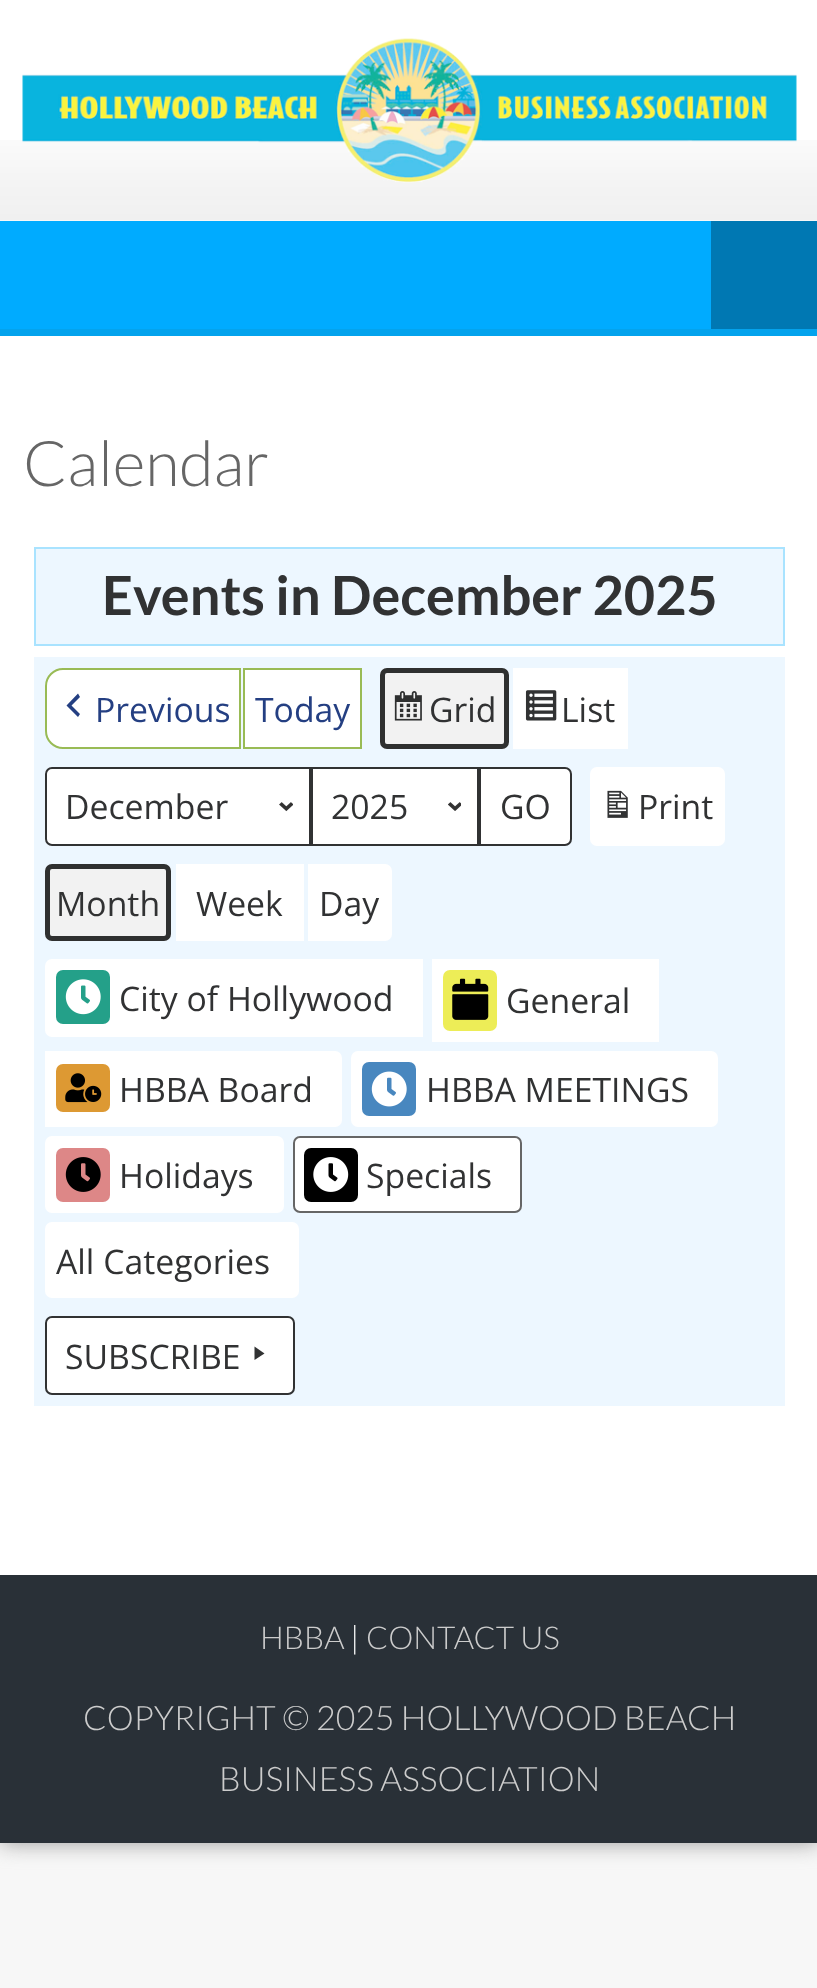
(async () => {
  const canvas = document.querySelector("canvas");
  canvas.width = 817;
  canvas.height = 1988;
  const ctx = canvas.getContext("2d");
  ctx.miterLimit = 4;
  ctx.fontKerning = "normal";
  async function loadImage(src) {
    const img = new Image();
    img.src = src;
    await img.decode();
    return img;
  }
  let path;

  ctx.fillStyle = "#f7f7f7";
  ctx.fillRect(0, 0, 817, 1988);
  ctx.fillStyle = "#999999";
  ctx.filter = "blur(11px)";
  ctx.beginPath();
  ctx.rect(0, 0, 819, 1843);
  ctx.fill();
  ctx.filter = "none";
  ctx.fillStyle = "#ffffff";
  ctx.fillRect(0, 0, 817, 1575);
  ctx.drawImage(await loadImage("img/1.png"), 0, 140, 817, 81);
  ctx.drawImage(await loadImage("img/2.png"), 22, 38, 775, 145);
  for (const [x, y, w, h, color] of [
    [0, 221, 711, 108, "#00abff"],
    [0, 329, 817, 7, "#04a3ed"],
    [711, 221, 106, 108, "#0078b3"],
  ]) {
    ctx.fillStyle = color;
    ctx.fillRect(x, y, w, h);
  }
  ctx.fillStyle = "#edf7ff";
  ctx.beginPath();
  ctx.rect(35, 548, 749, 97);
  ctx.fill();
  ctx.strokeStyle = "#a9e3ff";
  ctx.lineWidth = 2;
  ctx.stroke();
  ctx.fillRect(34, 657, 751, 749);
  ctx.fillStyle = "#ffffff";
  ctx.beginPath();
  ctx.roundRect(46, 669, 194, 79, [17, 0, 0, 17]);
  ctx.fill();
  ctx.strokeStyle = "#99bb55";
  ctx.stroke();
  ctx.fillStyle = "#243f82";
  path = new Path2D("M80 697L71.5 705.5L80 714L78 717L66.5 705.5L78 693.5Z");
  ctx.fill(path);
  ctx.fillStyle = "#ffffff";
  ctx.beginPath();
  ctx.rect(244, 669, 117, 79);
  ctx.fill();
  ctx.stroke();
  ctx.fillStyle = "#f2f2f2";
  ctx.beginPath();
  ctx.roundRect(380, 668, 129, 81, 7);
  ctx.fill();
  ctx.drawImage(await loadImage("img/3.png"), 394, 691, 28, 30);
  ctx.beginPath();
  ctx.roundRect(382.5, 670.5, 124, 76, 4.5);
  ctx.strokeStyle = "#2f3030";
  ctx.lineWidth = 5;
  ctx.stroke();
  ctx.fillStyle = "#ffffff";
  ctx.fillRect(513, 668, 115, 81);
  ctx.drawImage(await loadImage("img/4.png"), 525, 690, 32, 31);
  ctx.beginPath();
  ctx.roundRect(45, 767, 266, 79, [7, 0, 0, 7]);
  ctx.fill();
  ctx.drawImage(await loadImage("img/5.png"), 279, 802, 14, 10);
  ctx.beginPath();
  ctx.roundRect(46, 768, 264, 77, [6, 0, 0, 6]);
  ctx.strokeStyle = "#313233";
  ctx.lineWidth = 2;
  ctx.stroke();
  ctx.fillRect(313, 769, 164, 75);
  ctx.drawImage(await loadImage("img/6.png"), 448, 802, 13, 9);
  ctx.strokeRect(312, 768, 166, 77);
  ctx.beginPath();
  ctx.roundRect(480, 768, 91, 77, [0, 6, 6, 0]);
  ctx.fill();
  ctx.stroke();
  ctx.beginPath();
  ctx.roundRect(590, 767, 135, 79, 7);
  ctx.fill();
  ctx.drawImage(await loadImage("img/7.png"), 607, 790, 21, 28);
  ctx.fillStyle = "#f2f2f2";
  ctx.beginPath();
  ctx.roundRect(45, 864, 126, 77, 7);
  ctx.fill();
  ctx.beginPath();
  ctx.roundRect(47.5, 866.5, 121, 72, 4.5);
  ctx.strokeStyle = "#2f3030";
  ctx.lineWidth = 5;
  ctx.stroke();
  ctx.fillStyle = "#ffffff";
  ctx.fillRect(176, 864, 128, 77);
  ctx.beginPath();
  ctx.roundRect(308, 864, 84, 77, [0, 7, 7, 0]);
  ctx.fill();
  ctx.beginPath();
  ctx.roundRect(45, 959, 378, 78, [7, 0, 0, 7]);
  ctx.fill();
  ctx.fillStyle = "#24a089";
  ctx.beginPath();
  ctx.roundRect(56, 970, 54, 54, 7);
  ctx.fill();
  ctx.drawImage(await loadImage("img/8.png"), 65, 979, 36, 36);
  ctx.fillStyle = "#ffffff";
  ctx.fillRect(432, 959, 227, 83);
  ctx.fillStyle = "#eded57";
  ctx.beginPath();
  ctx.roundRect(443, 970, 54, 61, 7);
  ctx.fill();
  ctx.drawImage(await loadImage("img/9.png"), 452, 978, 37, 42);
  ctx.fillStyle = "#ffffff";
  ctx.beginPath();
  ctx.roundRect(45, 1051, 297, 76, [0, 7, 7, 0]);
  ctx.fill();
  ctx.fillStyle = "#dd9933";
  ctx.beginPath();
  ctx.roundRect(56, 1064, 54, 48, 7);
  ctx.fill();
  ctx.drawImage(await loadImage("img/10.png"), 65, 1073, 37, 30);
  ctx.fillStyle = "#ffffff";
  ctx.beginPath();
  ctx.roundRect(351, 1051, 367, 76, 7);
  ctx.fill();
  ctx.fillStyle = "#4887bf";
  ctx.beginPath();
  ctx.roundRect(362, 1062, 54, 54, 7);
  ctx.fill();
  ctx.drawImage(await loadImage("img/11.png"), 371, 1071, 36, 36);
  ctx.fillStyle = "#ffffff";
  ctx.beginPath();
  ctx.roundRect(45, 1136, 239, 77, 7);
  ctx.fill();
  ctx.fillStyle = "#dd8787";
  ctx.beginPath();
  ctx.roundRect(56, 1148, 54, 54, 7);
  ctx.fill();
  ctx.drawImage(await loadImage("img/12.png"), 65, 1157, 36, 35);
  ctx.fillStyle = "#ffffff";
  ctx.beginPath();
  ctx.roundRect(294, 1137, 227, 75, 6);
  ctx.fill();
  ctx.strokeStyle = "#666666";
  ctx.lineWidth = 2;
  ctx.stroke();
  ctx.fillStyle = "#000000";
  ctx.beginPath();
  ctx.roundRect(304, 1148, 54, 54, 7);
  ctx.fill();
  ctx.drawImage(await loadImage("img/13.png"), 313, 1157, 36, 35);
  ctx.fillStyle = "#ffffff";
  ctx.beginPath();
  ctx.roundRect(45, 1222, 254, 76, 7);
  ctx.fill();
  ctx.beginPath();
  ctx.roundRect(46, 1317, 248, 77, 6);
  ctx.fill();
  ctx.strokeStyle = "#313233";
  ctx.stroke();
  ctx.fillStyle = "#313233";
  path = new Path2D("M254.5 1346.5L264.5 1353.5L254.5 1360Z");
  ctx.fill(path);
  ctx.fillStyle = "#293037";
  ctx.fillRect(0, 1575, 817, 268);
  ctx.font = "300 63px Lato";
  ctx.fillStyle = "#666666";
  ctx.fillText("Calendar", 23, 486);
  ctx.font = "bold 54px Lato";
  ctx.fillStyle = "#313233";
  ctx.fillText("Events in December 2025", 102, 615);
  ctx.font = "33.75px Open Sans";
  ctx.fillStyle = "#243f82";
  ctx.fillText("Previous", 95, 722);
  ctx.fillText("Today", 255, 722);
  ctx.fillStyle = "#313233";
  for (const [text, x, y] of [
    ["Grid", 429, 722],
    ["List", 561, 722],
    ["December", 65, 819],
    ["2025", 331, 819],
    ["GO", 500, 819],
    ["Print", 638, 819],
    ["Month", 56, 916],
    ["Week", 196, 916],
    ["Day", 319, 916],
    ["City of Hollywood", 119, 1011],
    ["General", 506, 1013],
    ["HBBA Board", 119, 1102],
    ["HBBA MEETINGS", 426, 1102],
    ["Holidays", 119, 1188],
    ["Specials", 366, 1188],
    ["All Categories", 56, 1274],
    ["SUBSCRIBE", 65, 1369],
  ]) {
    ctx.fillText(text, x, y);
  }
  ctx.font = "300 31.5px Lato";
  ctx.fillStyle = "#cccccc";
  ctx.fillText("HBBA", 260, 1649);
  ctx.fillStyle = "#ffffff";
  ctx.fillText("|", 350, 1649);
  ctx.fillStyle = "#cccccc";
  ctx.fillText("CONTACT US", 366, 1649);
  ctx.font = "300 33.75px Lato";
  ctx.fillText("COPYRIGHT © 2025 HOLLYWOOD BEACH", 83, 1730);
  ctx.fillText("BUSINESS ASSOCIATION", 219, 1791);
})();
